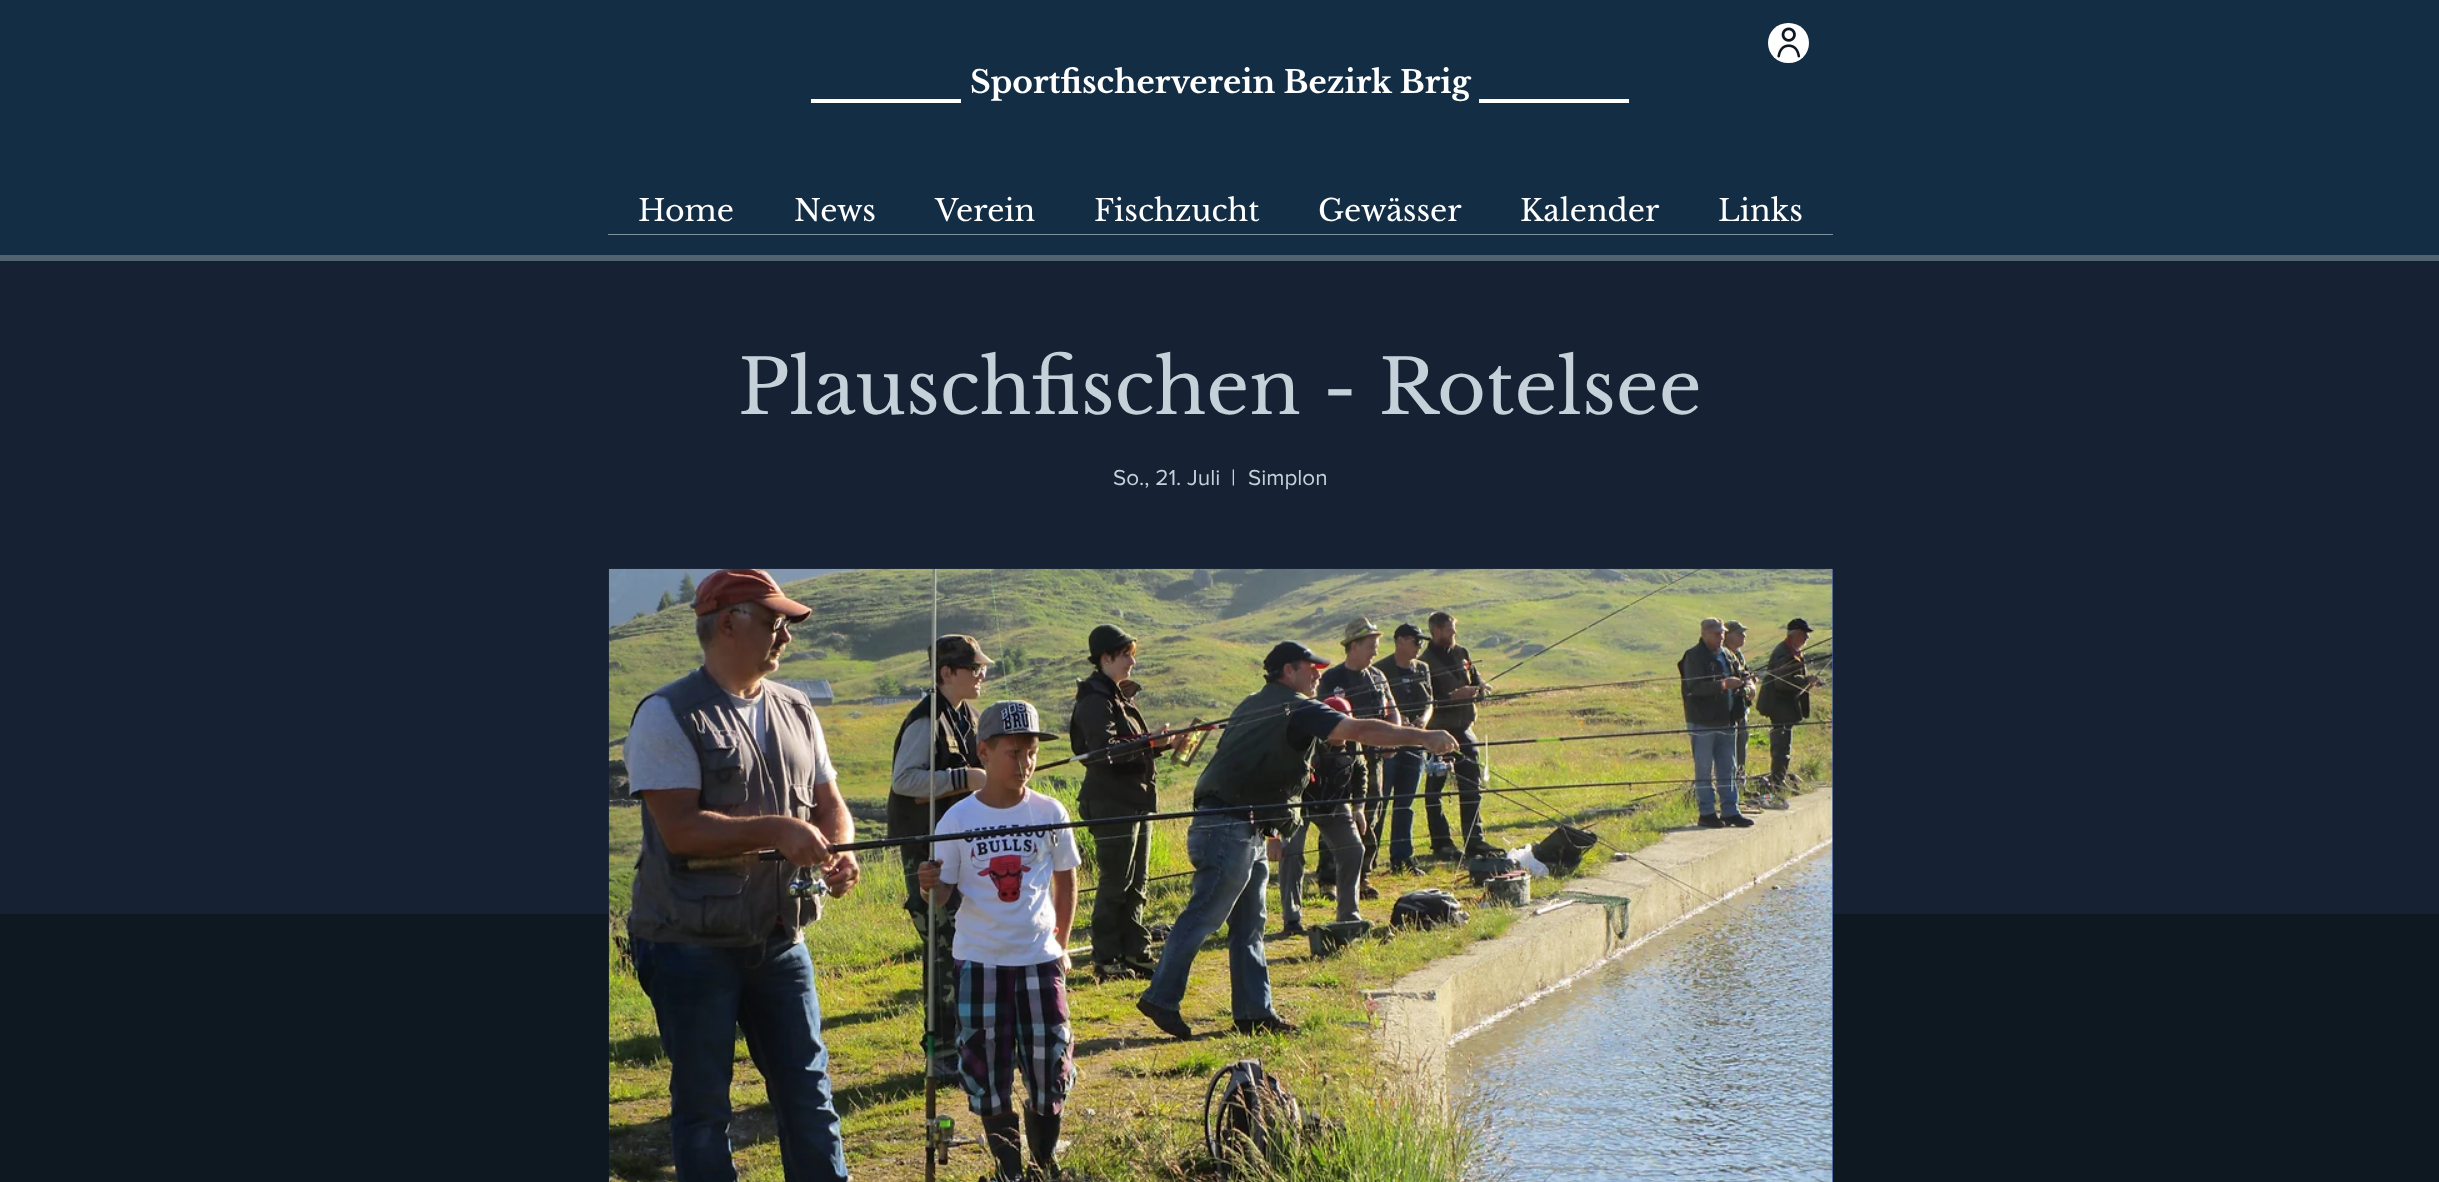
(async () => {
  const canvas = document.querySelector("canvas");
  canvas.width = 2439;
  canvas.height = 1182;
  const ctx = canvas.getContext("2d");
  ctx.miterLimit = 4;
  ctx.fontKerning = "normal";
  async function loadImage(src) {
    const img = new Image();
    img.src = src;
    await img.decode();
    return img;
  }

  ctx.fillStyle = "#0e1821";
  ctx.fillRect(0, 0, 2439, 1182);
  ctx.fillStyle = "#132d45";
  ctx.fillRect(0, 0, 2439, 255);
  ctx.fillStyle = "#516371";
  ctx.fillRect(0, 255, 2439, 6);
  ctx.fillStyle = "#ffffff";
  ctx.beginPath();
  ctx.roundRect(1768, 23, 41, 40, 20);
  ctx.fill();
  ctx.drawImage(await loadImage("img/1.png"), 1777, 27, 24, 31);
  for (const [x, y, w, h, color] of [
    [811, 99, 150, 4, "#ffffff"],
    [1479, 99, 150, 4, "#ffffff"],
    [608, 234, 1225, 1, "#7e8f9e"],
    [0, 261, 2439, 653, "#162233"],
    [1832, 569, 1, 613, "#3d5495"],
  ]) {
    ctx.fillStyle = color;
    ctx.fillRect(x, y, w, h);
  }
  ctx.drawImage(await loadImage("img/2.png"), 608, 568, 1225, 614);
  ctx.font = "bold 31.25px Libre Baskerville";
  ctx.fillStyle = "#ffffff";
  ctx.fillText("Sportfischerverein Bezirk Brig", 970, 93);
  ctx.font = "30px Libre Baskerville";
  for (const [text, x, y] of [
    ["Home", 638, 221],
    ["News", 794, 221],
    ["Verein", 935, 221],
    ["Fischzucht", 1094, 221],
    ["Gewässer", 1318, 221],
    ["Kalender", 1520, 221],
    ["Links", 1718, 221],
  ]) {
    ctx.fillText(text, x, y);
  }
  ctx.font = "75px Libre Baskerville";
  ctx.fillStyle = "#c5d0d9";
  ctx.fillText("Plauschfischen - Rotelsee", 738, 414);
  ctx.font = "22.5px 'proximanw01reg'";
  for (const [text, x, y] of [
    ["So., 21. Juli", 1113, 485],
    ["|", 1231, 485],
    ["Simplon", 1248, 485],
  ]) {
    ctx.fillText(text, x, y);
  }
})();
